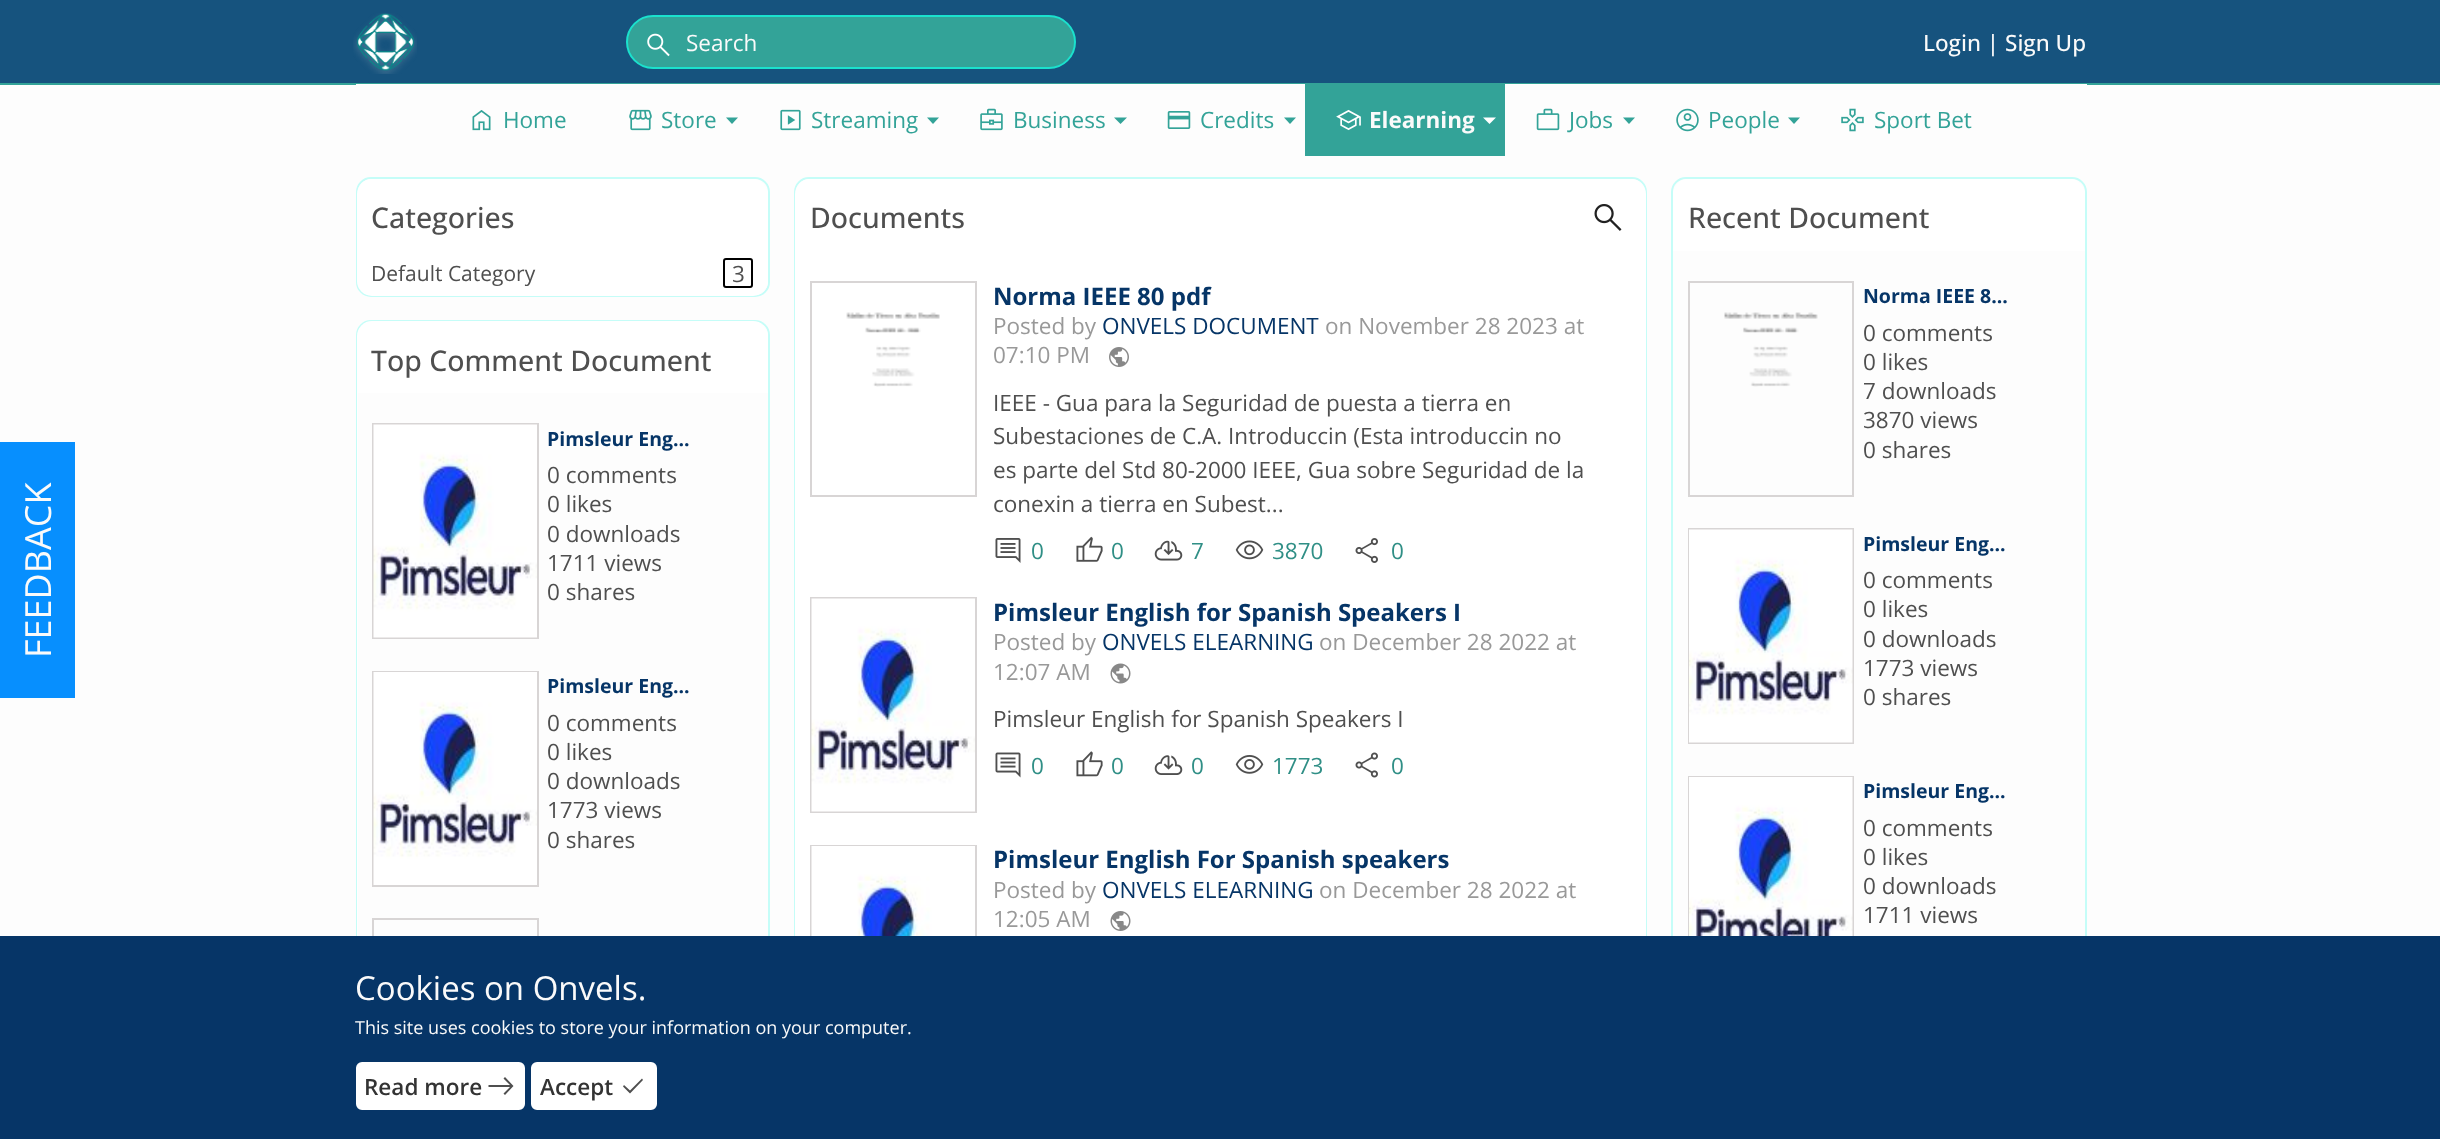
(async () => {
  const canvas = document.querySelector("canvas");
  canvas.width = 2440;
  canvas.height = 1139;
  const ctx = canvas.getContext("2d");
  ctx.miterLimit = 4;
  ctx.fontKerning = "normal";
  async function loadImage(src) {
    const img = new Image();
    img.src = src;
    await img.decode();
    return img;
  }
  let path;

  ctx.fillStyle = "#fdfdfd";
  ctx.fillRect(0, 0, 2440, 1139);
  ctx.fillStyle = "#16537e";
  ctx.fillRect(0, 0, 2440, 83);
  ctx.fillStyle = "#33a398";
  ctx.fillRect(0, 83, 2440, 2);
  ctx.drawImage(await loadImage("img/1.png"), 353, 13, 64, 61);
  ctx.beginPath();
  ctx.roundRect(627, 16, 448, 52, 26);
  ctx.fill();
  ctx.strokeStyle = "#1be1cd";
  ctx.lineWidth = 2;
  ctx.stroke();
  ctx.drawImage(await loadImage("img/2.png"), 647, 33, 23, 24);
  ctx.fillStyle = "#ffffff";
  ctx.fillRect(356, 84, 1731, 1);
  ctx.drawImage(await loadImage("img/3.png"), 472, 110, 19, 21);
  ctx.drawImage(await loadImage("img/4.png"), 629, 109, 23, 22);
  ctx.fillStyle = "#33a398";
  path = new Path2D("M732 124L726 117.5H738Z");
  ctx.fill(path);
  ctx.drawImage(await loadImage("img/5.png"), 780, 109, 21, 22);
  path = new Path2D("M933 124L927 117.5H939Z");
  ctx.fill(path);
  ctx.drawImage(await loadImage("img/6.png"), 980, 108, 23, 23);
  path = new Path2D("M1120.5 124L1114 117.5H1127Z");
  ctx.fill(path);
  ctx.drawImage(await loadImage("img/7.png"), 1167, 111, 24, 18);
  path = new Path2D("M1290 124L1284 117.5H1296Z");
  ctx.fill(path);
  ctx.fillRect(1305, 84, 200, 72);
  ctx.drawImage(await loadImage("img/8.png"), 1336, 109, 25, 22);
  ctx.fillStyle = "#ffffff";
  path = new Path2D("M1489.5 124L1483 117.5H1496Z");
  ctx.fill(path);
  ctx.drawImage(await loadImage("img/9.png"), 1536, 108, 24, 23);
  ctx.fillStyle = "#33a398";
  path = new Path2D("M1629 124L1623 117.5H1635Z");
  ctx.fill(path);
  ctx.drawImage(await loadImage("img/10.png"), 1676, 108, 23, 24);
  path = new Path2D("M1794 124L1788 117.5H1800Z");
  ctx.fill(path);
  ctx.drawImage(await loadImage("img/11.png"), 1841, 108, 23, 24);
  ctx.fillStyle = "#078ffe";
  ctx.fillRect(0, 442, 75, 256);
  ctx.beginPath();
  ctx.roundRect(357, 178, 412, 118, 14);
  ctx.strokeStyle = "#c5fdf8";
  ctx.stroke();
  ctx.fillStyle = "#ffffff";
  ctx.beginPath();
  ctx.roundRect(357, 179, 411, 72, [15, 15, 0, 0]);
  ctx.fill();
  ctx.beginPath();
  ctx.roundRect(357, 251, 411, 45, [0, 0, 15, 15]);
  ctx.fill();
  ctx.beginPath();
  ctx.roundRect(724, 259, 28, 28, 2);
  ctx.strokeStyle = "#000000";
  ctx.stroke();
  ctx.beginPath();
  ctx.roundRect(357, 321, 412, 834, 14);
  ctx.strokeStyle = "#c5fdf8";
  ctx.stroke();
  ctx.beginPath();
  ctx.roundRect(357, 321, 411, 72, [15, 15, 0, 0]);
  ctx.fill();
  ctx.fillRect(357, 393, 1, 543);
  ctx.strokeStyle = "#d8d5d5";
  ctx.strokeRect(373, 424, 165, 214);
  ctx.drawImage(await loadImage("img/12.png"), 373, 424, 164, 214);
  ctx.strokeRect(373, 672, 165, 214);
  ctx.drawImage(await loadImage("img/13.png"), 373, 672, 164, 213);
  ctx.strokeRect(373, 919, 165, 214);
  ctx.beginPath();
  ctx.roundRect(795, 178, 851, 913, 14);
  ctx.strokeStyle = "#c5fdf8";
  ctx.stroke();
  ctx.beginPath();
  ctx.roundRect(795, 179, 851, 72, [15, 15, 0, 0]);
  ctx.fill();
  ctx.drawImage(await loadImage("img/14.png"), 1594, 204, 28, 27);
  ctx.fillRect(795, 251, 851, 685);
  ctx.strokeStyle = "#d8d5d5";
  ctx.strokeRect(811, 282, 165, 214);
  ctx.drawImage(await loadImage("img/15.png"), 846, 312, 94, 75);
  ctx.drawImage(await loadImage("img/16.png"), 1109, 347, 20, 20);
  ctx.drawImage(await loadImage("img/17.png"), 995, 538, 26, 25);
  ctx.drawImage(await loadImage("img/18.png"), 1076, 536, 27, 26);
  ctx.drawImage(await loadImage("img/19.png"), 1154, 540, 29, 21);
  ctx.drawImage(await loadImage("img/20.png"), 1235, 540, 29, 20);
  ctx.drawImage(await loadImage("img/21.png"), 1355, 538, 23, 25);
  ctx.strokeRect(811, 598, 165, 214);
  ctx.drawImage(await loadImage("img/12.png"), 811, 598, 164, 214);
  ctx.drawImage(await loadImage("img/22.png"), 1110, 663, 21, 21);
  ctx.drawImage(await loadImage("img/23.png"), 995, 752, 26, 26);
  ctx.drawImage(await loadImage("img/24.png"), 1076, 751, 27, 26);
  ctx.drawImage(await loadImage("img/25.png"), 1154, 755, 29, 20);
  ctx.drawImage(await loadImage("img/26.png"), 1235, 755, 29, 19);
  ctx.drawImage(await loadImage("img/27.png"), 1355, 752, 23, 26);
  ctx.strokeRect(811, 846, 165, 214);
  ctx.drawImage(await loadImage("img/28.png"), 811, 846, 164, 90);
  ctx.drawImage(await loadImage("img/29.png"), 1110, 911, 21, 20);
  ctx.beginPath();
  ctx.roundRect(1672, 178, 414, 852, 14);
  ctx.strokeStyle = "#c5fdf8";
  ctx.stroke();
  ctx.beginPath();
  ctx.roundRect(1673, 179, 412, 72, [15, 15, 0, 0]);
  ctx.fill();
  ctx.strokeStyle = "#d8d5d5";
  ctx.strokeRect(1689, 282, 164, 214);
  ctx.drawImage(await loadImage("img/30.png"), 1724, 312, 94, 75);
  ctx.strokeRect(1689, 529, 164, 214);
  ctx.drawImage(await loadImage("img/31.png"), 1689, 529, 164, 214);
  ctx.strokeRect(1689, 777, 164, 214);
  ctx.drawImage(await loadImage("img/32.png"), 1689, 777, 164, 159);
  ctx.fillStyle = "#063567";
  ctx.fillRect(0, 936, 2440, 203);
  ctx.fillStyle = "#ffffff";
  ctx.beginPath();
  ctx.roundRect(357, 1063, 167, 46, 5);
  ctx.fill();
  ctx.strokeStyle = "#ffffff";
  ctx.stroke();
  ctx.fillStyle = "#4f4f4f";
  path = new Path2D("M505 1095L503.5 1093.5L510 1087H488.5V1085H510L503.5 1078.5L505 1077L513.5 1086Z");
  ctx.fill(path);
  ctx.fillStyle = "#ffffff";
  ctx.beginPath();
  ctx.roundRect(532, 1063, 124, 46, 5);
  ctx.fill();
  ctx.stroke();
  ctx.fillStyle = "#4f4f4f";
  path = new Path2D("M630 1093.5L623 1086.5L624 1085L630 1090.5L642 1078.5L643 1080Z");
  ctx.fill(path);
  ctx.font = "22.5px Open Sans";
  ctx.fillStyle = "#fafafa";
  ctx.fillText("Search", 686, 51);
  ctx.font = "500 22.5px Open Sans";
  ctx.fillText("Login | Sign Up", 1923, 51);
  ctx.font = "22.5px Open Sans";
  ctx.fillStyle = "#33a398";
  for (const [text, x, y] of [
    ["Home", 503, 128],
    ["Store", 661, 128],
    ["Streaming", 811, 128],
    ["Business", 1013, 128],
    ["Credits", 1200, 128],
  ]) {
    ctx.fillText(text, x, y);
  }
  ctx.font = "bold 22.5px Open Sans";
  ctx.fillStyle = "#fafafa";
  ctx.fillText("Elearning", 1369, 128);
  ctx.font = "22.5px Open Sans";
  ctx.fillStyle = "#33a398";
  for (const [text, x, y] of [
    ["Jobs", 1569, 128],
    ["People", 1708, 128],
    ["Sport Bet", 1874, 128],
  ]) {
    ctx.fillText(text, x, y);
  }
  ctx.font = "36px Open Sans";
  ctx.fillStyle = "#fafafa";
  ctx.save();
  ctx.translate(51, 658);
  ctx.rotate(-90 * Math.PI / 180);
  ctx.fillText("FEEDBACK", 0, 0);
  ctx.restore();
  ctx.font = "500 28.5px Open Sans";
  ctx.fillStyle = "#4f4f4f";
  ctx.fillText("Categories", 371, 228);
  ctx.font = "21px Open Sans";
  ctx.fillText("Default Category", 371, 281);
  ctx.font = "22.5px Open Sans";
  ctx.fillText("3", 732, 282);
  ctx.font = "500 28.5px Open Sans";
  ctx.fillText("Top Comment Document", 371, 371);
  ctx.font = "bold 19.5px Open Sans";
  ctx.fillStyle = "#063567";
  ctx.fillText("Pimsleur Eng...", 547, 446);
  ctx.font = "22.5px Open Sans";
  ctx.fillStyle = "#4f4f4f";
  for (const [text, x, y] of [
    ["0 comments", 547, 483],
    ["0 likes", 547, 512],
    ["0 downloads", 547, 542],
    ["1711 views", 547, 571],
    ["0 shares", 547, 600],
  ]) {
    ctx.fillText(text, x, y);
  }
  ctx.font = "bold 19.5px Open Sans";
  ctx.fillStyle = "#063567";
  ctx.fillText("Pimsleur Eng...", 547, 693);
  ctx.font = "22.5px Open Sans";
  ctx.fillStyle = "#4f4f4f";
  for (const [text, x, y] of [
    ["0 comments", 547, 731],
    ["0 likes", 547, 760],
    ["0 downloads", 547, 789],
    ["1773 views", 547, 818],
    ["0 shares", 547, 848],
  ]) {
    ctx.fillText(text, x, y);
  }
  ctx.font = "500 28.5px Open Sans";
  ctx.fillText("Documents", 810, 228);
  ctx.font = "bold 24px Open Sans";
  ctx.fillStyle = "#063567";
  ctx.fillText("Norma IEEE 80 pdf", 993, 305);
  ctx.font = "22.5px Open Sans";
  ctx.fillStyle = "#999999";
  ctx.fillText("Posted by", 993, 334);
  ctx.fillStyle = "#063567";
  ctx.fillText("ONVELS DOCUMENT", 1102, 334);
  ctx.fillStyle = "#999999";
  ctx.fillText("on November 28 2023 at", 1325, 334);
  ctx.fillText("07:10 PM", 993, 363);
  ctx.fillStyle = "#4f4f4f";
  for (const [text, x, y] of [
    ["IEEE - Gua para la Seguridad de puesta a tierra en", 993, 411],
    ["Subestaciones de C.A. Introduccin (Esta introduccin no", 993, 444],
    ["es parte del Std 80-2000 IEEE, Gua sobre Seguridad de la", 993, 478],
    ["conexin a tierra en Subest...", 993, 512],
  ]) {
    ctx.fillText(text, x, y);
  }
  ctx.fillStyle = "#308f86";
  for (const [text, x, y] of [
    ["0", 1031, 559],
    ["0", 1111, 559],
    ["7", 1191, 559],
    ["3870", 1272, 559],
    ["0", 1391, 559],
  ]) {
    ctx.fillText(text, x, y);
  }
  ctx.font = "bold 24px Open Sans";
  ctx.fillStyle = "#063567";
  ctx.fillText("Pimsleur English for Spanish Speakers I", 993, 621);
  ctx.font = "22.5px Open Sans";
  ctx.fillStyle = "#999999";
  ctx.fillText("Posted by", 993, 650);
  ctx.fillStyle = "#063567";
  ctx.fillText("ONVELS ELEARNING", 1102, 650);
  ctx.fillStyle = "#999999";
  ctx.fillText("on December 28 2022 at", 1319, 650);
  ctx.fillText("12:07 AM", 993, 680);
  ctx.fillStyle = "#4f4f4f";
  ctx.fillText("Pimsleur English for Spanish Speakers I", 993, 727);
  ctx.fillStyle = "#308f86";
  for (const [text, x, y] of [
    ["0", 1031, 774],
    ["0", 1111, 774],
    ["0", 1191, 774],
    ["1773", 1272, 774],
    ["0", 1391, 774],
  ]) {
    ctx.fillText(text, x, y);
  }
  ctx.font = "bold 24px Open Sans";
  ctx.fillStyle = "#063567";
  ctx.fillText("Pimsleur English For Spanish speakers", 993, 868);
  ctx.font = "22.5px Open Sans";
  ctx.fillStyle = "#999999";
  ctx.fillText("Posted by", 993, 898);
  ctx.fillStyle = "#063567";
  ctx.fillText("ONVELS ELEARNING", 1102, 898);
  ctx.fillStyle = "#999999";
  ctx.fillText("on December 28 2022 at", 1319, 898);
  ctx.fillText("12:05 AM", 993, 927);
  ctx.font = "500 28.5px Open Sans";
  ctx.fillStyle = "#4f4f4f";
  ctx.fillText("Recent Document", 1688, 228);
  ctx.font = "bold 19.5px Open Sans";
  ctx.fillStyle = "#063567";
  ctx.fillText("Norma IEEE 8...", 1863, 303);
  ctx.font = "22.5px Open Sans";
  ctx.fillStyle = "#4f4f4f";
  for (const [text, x, y] of [
    ["0 comments", 1863, 341],
    ["0 likes", 1863, 370],
    ["7 downloads", 1863, 399],
    ["3870 views", 1863, 428],
    ["0 shares", 1863, 458],
  ]) {
    ctx.fillText(text, x, y);
  }
  ctx.font = "bold 19.5px Open Sans";
  ctx.fillStyle = "#063567";
  ctx.fillText("Pimsleur Eng...", 1863, 551);
  ctx.font = "22.5px Open Sans";
  ctx.fillStyle = "#4f4f4f";
  for (const [text, x, y] of [
    ["0 comments", 1863, 588],
    ["0 likes", 1863, 617],
    ["0 downloads", 1863, 647],
    ["1773 views", 1863, 676],
    ["0 shares", 1863, 705],
  ]) {
    ctx.fillText(text, x, y);
  }
  ctx.font = "bold 19.5px Open Sans";
  ctx.fillStyle = "#063567";
  ctx.fillText("Pimsleur Eng...", 1863, 798);
  ctx.font = "22.5px Open Sans";
  ctx.fillStyle = "#4f4f4f";
  for (const [text, x, y] of [
    ["0 comments", 1863, 836],
    ["0 likes", 1863, 865],
    ["0 downloads", 1863, 894],
    ["1711 views", 1863, 923],
  ]) {
    ctx.fillText(text, x, y);
  }
  ctx.font = "33px Open Sans";
  ctx.fillStyle = "#fafafa";
  ctx.fillText("Cookies on Onvels.", 355, 1000);
  ctx.font = "18px Open Sans";
  ctx.fillText("This site uses cookies to store your information on your computer.", 355, 1034);
  ctx.font = "600 22.5px Open Sans";
  ctx.fillStyle = "#333333";
  ctx.fillText("Read more", 364, 1095);
  ctx.fillText("Accept", 540, 1095);
})();
